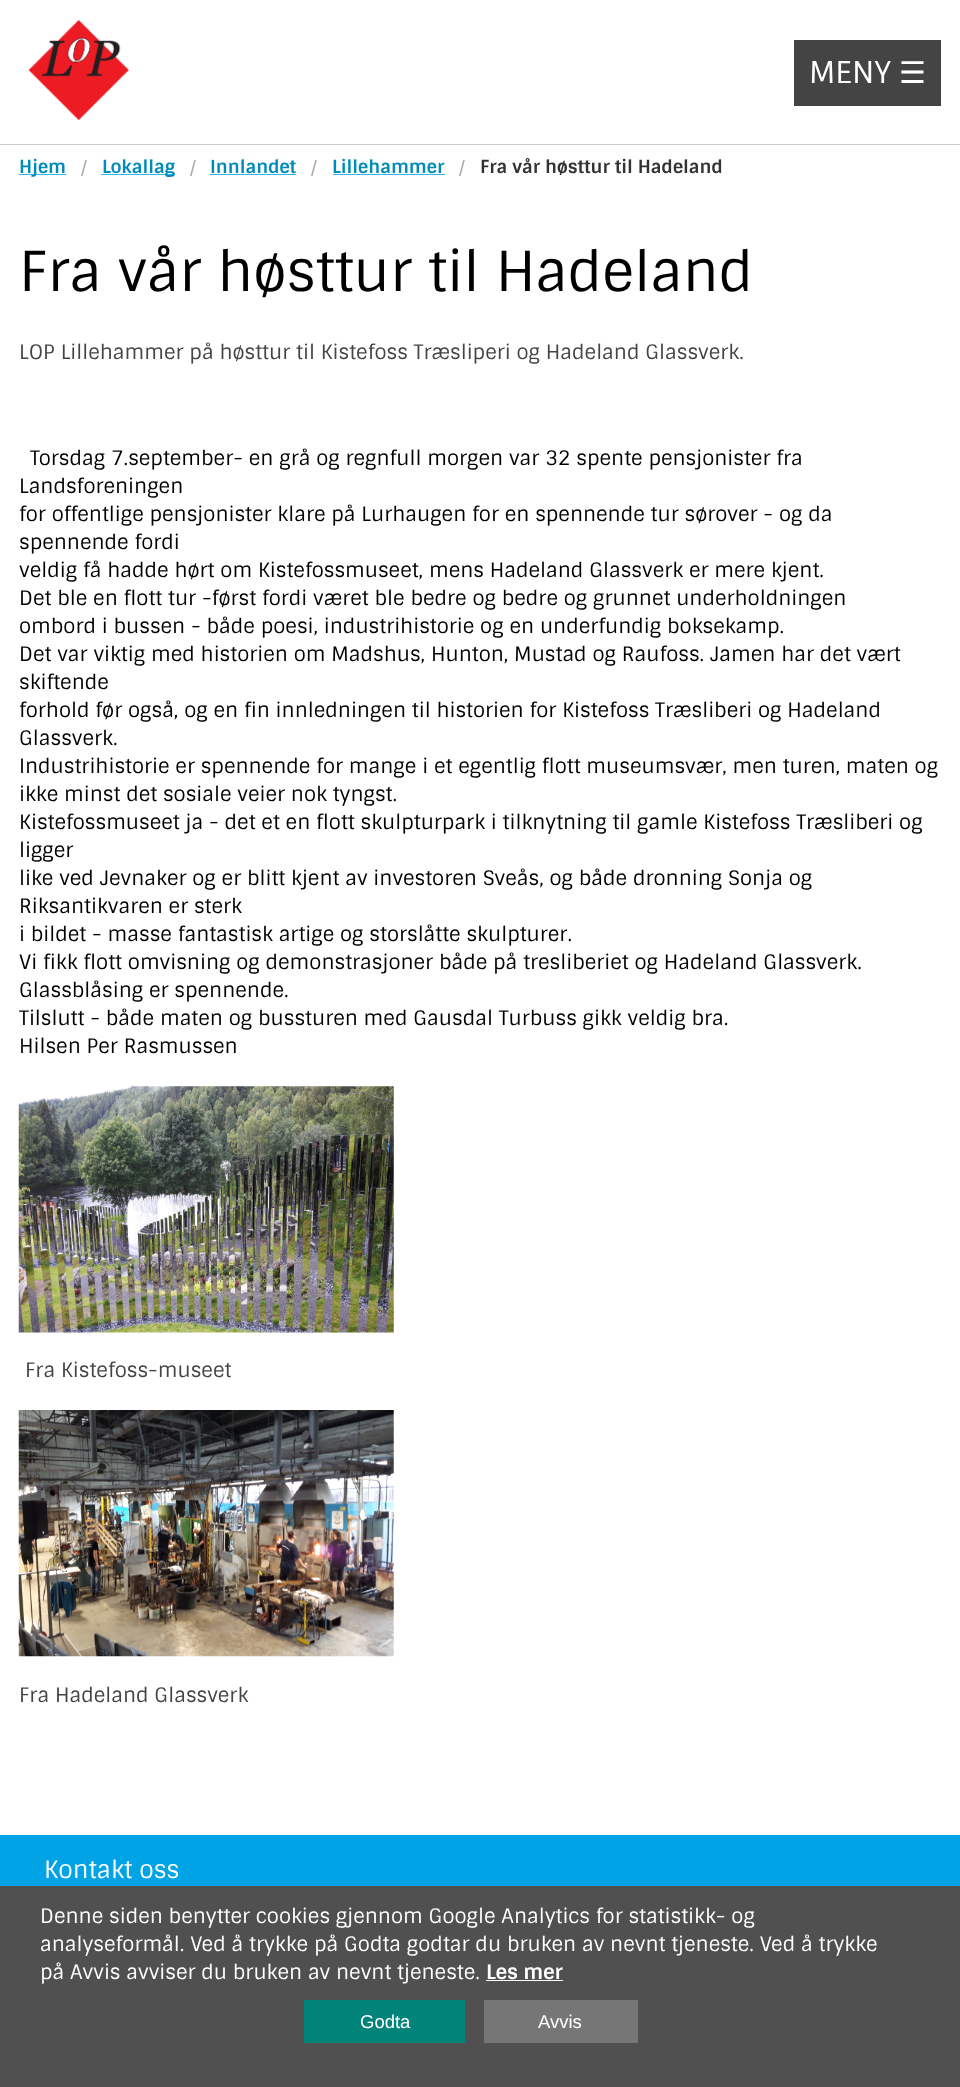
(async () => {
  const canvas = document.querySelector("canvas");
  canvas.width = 960;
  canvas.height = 2087;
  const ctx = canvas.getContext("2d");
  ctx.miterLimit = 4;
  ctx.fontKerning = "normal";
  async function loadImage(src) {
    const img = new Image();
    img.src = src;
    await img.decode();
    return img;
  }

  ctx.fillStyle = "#ffffff";
  ctx.fillRect(0, 0, 960, 2087);
  ctx.drawImage(await loadImage("img/1.png"), 28, 20, 101, 100);
  for (const [x, y, w, h, color] of [
    [794, 40, 147, 66, "#444444"],
    [0, 144, 960, 1, "#cccccc"],
    [19, 174, 47, 1, "#33b5eb"],
    [101, 174, 74, 1, "#33b5eb"],
    [210, 174, 86, 1, "#33b5eb"],
    [333, 174, 112, 1, "#33b5eb"],
  ]) {
    ctx.fillStyle = color;
    ctx.fillRect(x, y, w, h);
  }
  ctx.drawImage(await loadImage("img/2.png"), 18, 1086, 376, 247);
  ctx.drawImage(await loadImage("img/3.png"), 18, 1410, 376, 247);
  for (const [x, y, w, h, color] of [
    [0, 1835, 960, 51, "#00a3e6"],
    [0, 1886, 960, 201, "#505050"],
    [486, 1980, 77, 1, "#ffffff"],
    [304, 2000, 161, 43, "#008479"],
    [484, 2000, 154, 43, "#767676"],
  ]) {
    ctx.fillStyle = color;
    ctx.fillRect(x, y, w, h);
  }
  ctx.font = "30px Sintony";
  ctx.fillStyle = "#ffffff";
  ctx.fillText("MENY", 809, 83);
  ctx.font = "30px DejaVu Sans";
  ctx.fillText("☰", 899, 83);
  ctx.font = "bold 18px Sintony";
  ctx.fillStyle = "#008cba";
  ctx.fillText("Hjem", 19, 173);
  ctx.font = "18px Sintony";
  ctx.fillStyle = "#aaaaaa";
  ctx.fillText("/", 81, 174);
  ctx.font = "bold 18px Sintony";
  ctx.fillStyle = "#008cba";
  ctx.fillText("Lokallag", 102, 173);
  ctx.font = "18px Sintony";
  ctx.fillStyle = "#aaaaaa";
  ctx.fillText("/", 190, 174);
  ctx.font = "bold 18px Sintony";
  ctx.fillStyle = "#008cba";
  ctx.fillText("Innlandet", 210, 173);
  ctx.font = "18px Sintony";
  ctx.fillStyle = "#aaaaaa";
  ctx.fillText("/", 311, 174);
  ctx.font = "bold 18px Sintony";
  ctx.fillStyle = "#008cba";
  ctx.fillText("Lillehammer", 332, 173);
  ctx.font = "18px Sintony";
  ctx.fillStyle = "#aaaaaa";
  ctx.fillText("/", 459, 174);
  ctx.font = "bold 18px Sintony";
  ctx.fillStyle = "#333333";
  ctx.fillText("Fra vår høsttur til Hadeland", 480, 173);
  ctx.font = "55px Sintony";
  ctx.fillStyle = "#000000";
  ctx.fillText("Fra vår høsttur til Hadeland", 19, 291);
  ctx.font = "20px Sintony";
  ctx.fillStyle = "#444444";
  ctx.fillText("LOP Lillehammer på høsttur til Kistefoss Træsliperi og Hadeland Glassverk.", 19, 359);
  ctx.fillStyle = "#000000";
  for (const [text, x, y] of [
    ["Torsdag 7.september- en grå og regnfull morgen var 32 spente pensjonister fra", 30, 465],
    ["Landsforeningen", 19, 493],
    ["for offentlige pensjonister klare på Lurhaugen for en spennende tur sørover - og da", 19, 521],
    ["spennende fordi", 19, 549],
    ["veldig få hadde hørt om Kistefossmuseet, mens Hadeland Glassverk er mere kjent.", 19, 577],
    ["Det ble en flott tur -først fordi været ble bedre og bedre og grunnet underholdningen", 19, 605],
    ["ombord i bussen - både poesi, industrihistorie og en underfundig boksekamp.", 19, 633],
    ["Det var viktig med historien om Madshus, Hunton, Mustad og Raufoss. Jamen har det vært", 19, 661],
    ["skiftende", 19, 689],
    ["forhold før også, og en fin innledningen til historien for Kistefoss Træsliberi og Hadeland", 19, 717],
    ["Glassverk.", 19, 745],
    ["Industrihistorie er spennende for mange i et egentlig flott museumsvær, men turen, maten og", 19, 773],
    ["ikke minst det sosiale veier nok tyngst.", 19, 801],
    ["Kistefossmuseet ja - det et en flott skulpturpark i tilknytning til gamle Kistefoss Træsliberi og", 19, 829],
    ["ligger", 19, 857],
    ["like ved Jevnaker og er blitt kjent av investoren Sveås, og både dronning Sonja og", 19, 885],
    ["Riksantikvaren er sterk", 19, 913],
    ["i bildet - masse fantastisk artige og storslåtte skulpturer.", 19, 941],
    ["Vi fikk flott omvisning og demonstrasjoner både på tresliberiet og Hadeland Glassverk.", 19, 969],
    ["Glassblåsing er spennende.", 19, 997],
    ["Tilslutt - både maten og bussturen med Gausdal Turbuss gikk veldig bra.", 19, 1025],
    ["Hilsen Per Rasmussen", 19, 1053],
  ]) {
    ctx.fillText(text, x, y);
  }
  ctx.fillStyle = "#444444";
  ctx.fillText("Fra Kistefoss-museet", 25, 1377);
  ctx.fillText("Fra Hadeland Glassverk", 19, 1702);
  ctx.font = "24px Sintony";
  ctx.fillStyle = "#ffffff";
  ctx.fillText("Kontakt oss", 44, 1878);
  ctx.font = "20px Sintony";
  for (const [text, x, y] of [
    ["Denne siden benytter cookies gjennom Google Analytics for statistikk- og", 40, 1923],
    ["analyseformål. Ved å trykke på Godta godtar du bruken av nevnt tjeneste. Ved å trykke", 40, 1951],
    ["på Avvis avviser du bruken av nevnt tjeneste.", 40, 1979],
  ]) {
    ctx.fillText(text, x, y);
  }
  ctx.font = "bold 20px Sintony";
  ctx.fillText("Les mer", 486, 1979);
  ctx.font = "18.5px Liberation Sans";
  ctx.fillText("Godta", 360, 2028);
  ctx.fillText("Avvis", 538, 2028);
})();
